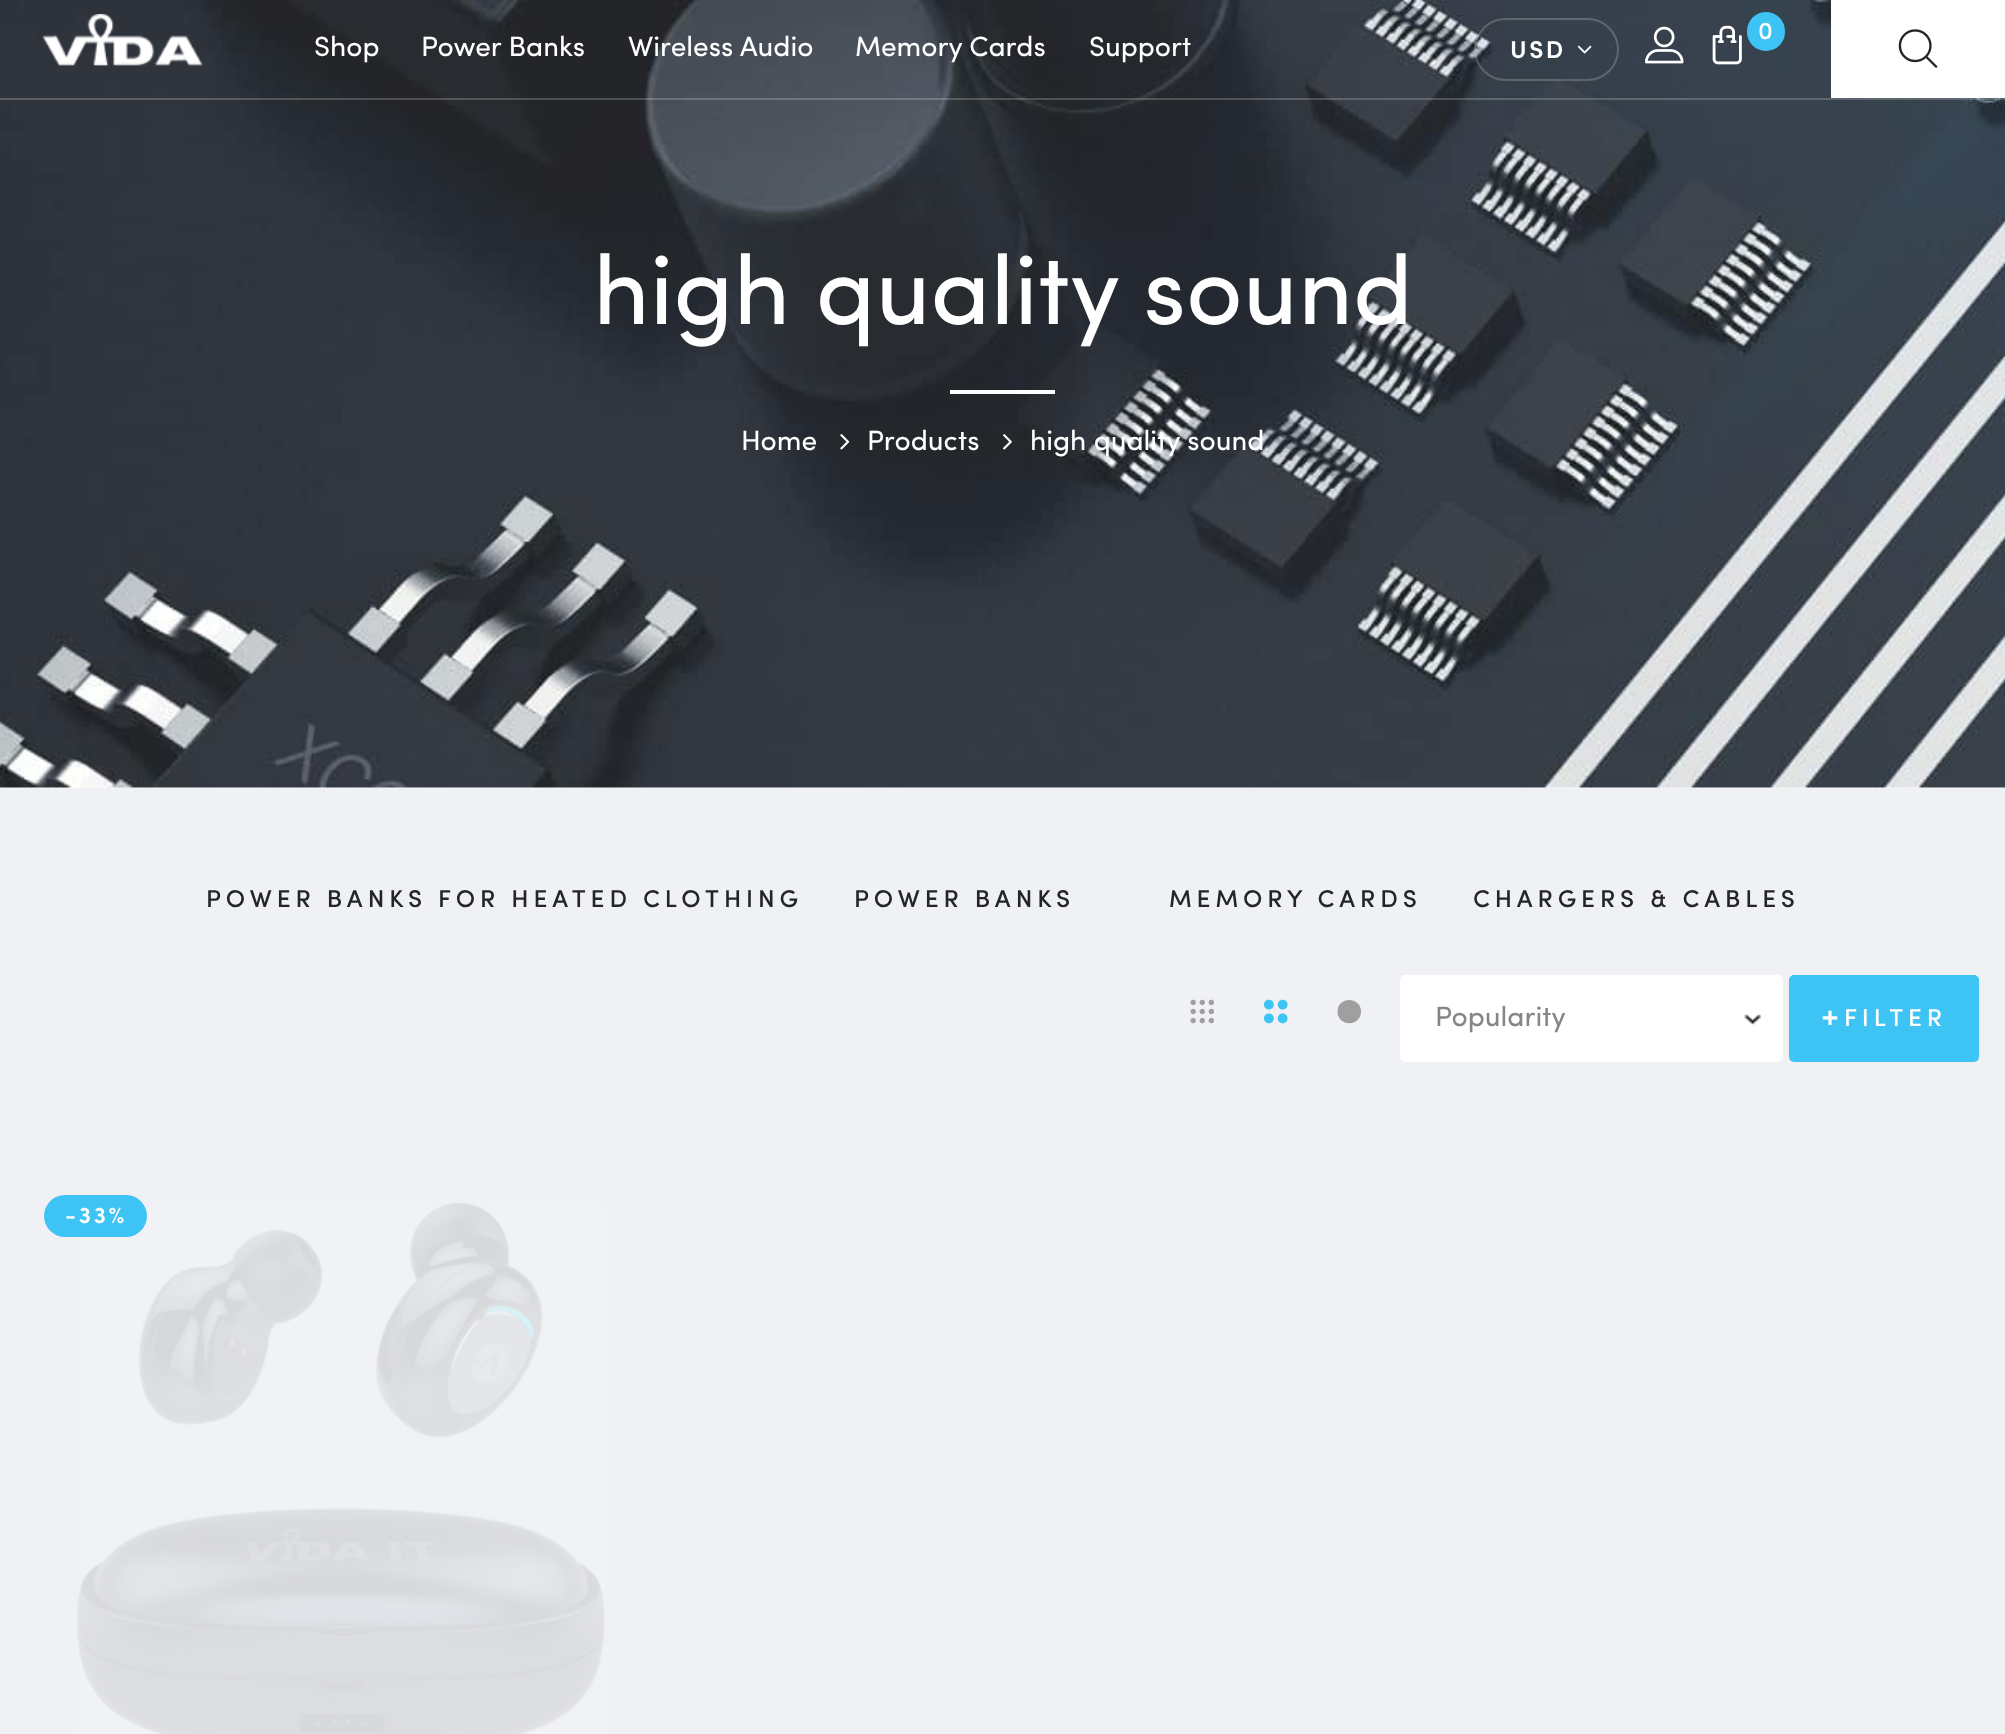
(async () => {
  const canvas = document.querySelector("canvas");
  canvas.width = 2005;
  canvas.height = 1734;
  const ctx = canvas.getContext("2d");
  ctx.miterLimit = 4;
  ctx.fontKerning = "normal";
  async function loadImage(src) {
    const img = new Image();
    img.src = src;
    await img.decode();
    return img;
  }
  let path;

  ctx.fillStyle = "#ffffff";
  ctx.fillRect(0, 0, 2005, 1734);
  ctx.drawImage(await loadImage("img/6.png"), 0, 0, 2005, 788);
  ctx.drawImage(await loadImage("img/1.png"), 42, 14, 161, 52);
  ctx.beginPath();
  ctx.roundRect(1475, 19, 143, 61, 30.5);
  ctx.strokeStyle = "rgba(255, 255, 255, 0.2)";
  ctx.lineWidth = 2;
  ctx.stroke();
  ctx.drawImage(await loadImage("img/2.png"), 1577, 45, 15, 9);
  ctx.drawImage(await loadImage("img/3.png"), 1645, 26, 39, 38);
  ctx.drawImage(await loadImage("img/4.png"), 1712, 25, 30, 40);
  ctx.fillStyle = "#3dc3f4";
  ctx.beginPath();
  ctx.roundRect(1747, 12, 38, 39, 19);
  ctx.fill();
  ctx.fillStyle = "#ffffff";
  ctx.fillRect(1831, 0, 174, 98);
  ctx.drawImage(await loadImage("img/5.png"), 1898, 29, 40, 39);
  ctx.fillStyle = "rgba(255, 255, 255, 0.2)";
  ctx.fillRect(0, 98, 2005, 2);
  ctx.fillStyle = "#ffffff";
  ctx.fillRect(950, 390, 105, 4);
  ctx.drawImage(await loadImage("img/7.png"), 840, 434, 10, 16);
  ctx.drawImage(await loadImage("img/8.png"), 1003, 434, 9, 16);
  ctx.fillStyle = "#f0f1f4";
  ctx.fillRect(0, 788, 2005, 946);
  ctx.drawImage(await loadImage("img/9.png"), 1190, 999, 24, 25);
  ctx.drawImage(await loadImage("img/10.png"), 1263, 999, 25, 25);
  ctx.fillStyle = "#9f9f9f";
  path = new Path2D("M1361 1011.5C1361 1027 1337.5 1027 1337.5 1011.5C1337.5 996 1361 996 1361 1011.5Z");
  ctx.fill(path);
  ctx.fillStyle = "#ffffff";
  ctx.beginPath();
  ctx.roundRect(1400, 975, 383, 87, 5);
  ctx.fill();
  ctx.drawImage(await loadImage("img/11.png"), 1744, 1014, 17, 11);
  ctx.fillStyle = "#3dc3f4";
  ctx.beginPath();
  ctx.roundRect(1789, 975, 190, 87, 5);
  ctx.fill();
  ctx.drawImage(await loadImage("img/12.png"), 77, 1203, 528, 531);
  ctx.beginPath();
  ctx.roundRect(44, 1195, 103, 42, 21);
  ctx.fill();
  ctx.font = "28px Sofia";
  ctx.fillStyle = "#ffffff";
  for (const [text, x, y] of [
    ["Shop", 314, 56],
    ["Power Banks", 421, 56],
    ["Wireless Audio", 628, 56],
    ["Memory Cards", 855, 56],
    ["Support", 1089, 56],
  ]) {
    ctx.fillText(text, x, y);
  }
  ctx.letterSpacing = "2.5px";
  ctx.font = "600 24.5px Sofia";
  ctx.fillText("USD", 1510, 58);
  ctx.letterSpacing = "0px";
  ctx.font = "500 24.5px Sofia";
  ctx.fillText("0", 1758, 39);
  ctx.font = "98px Sofia";
  ctx.fillText("high quality sound", 593, 324);
  ctx.font = "28px Sofia";
  for (const [text, x, y] of [
    ["Home", 741, 450],
    ["Products", 867, 450],
    ["high quality sound", 1030, 450],
  ]) {
    ctx.fillText(text, x, y);
  }
  ctx.letterSpacing = "4.9px";
  ctx.font = "500 24.5px Sofia";
  ctx.fillStyle = "#232529";
  for (const [text, x, y] of [
    ["POWER BANKS FOR HEATED CLOTHING", 206, 907],
    ["POWER BANKS", 854, 907],
    ["MEMORY CARDS", 1169, 907],
    ["CHARGERS & CABLES", 1473, 907],
  ]) {
    ctx.fillText(text, x, y);
  }
  ctx.letterSpacing = "0px";
  ctx.font = "28px Sofia";
  ctx.fillStyle = "#868686";
  ctx.fillText("Popularity", 1435, 1026);
  ctx.letterSpacing = "4.9px";
  ctx.font = "500 35px Sofia";
  ctx.fillStyle = "#ffffff";
  ctx.fillText("+", 1821, 1027);
  ctx.font = "500 24.5px Sofia";
  ctx.fillText("FILTER", 1844, 1026);
  ctx.letterSpacing = "2.5px";
  ctx.font = "600 23px Sofia";
  ctx.fillText("-33%", 65, 1223);
})();
